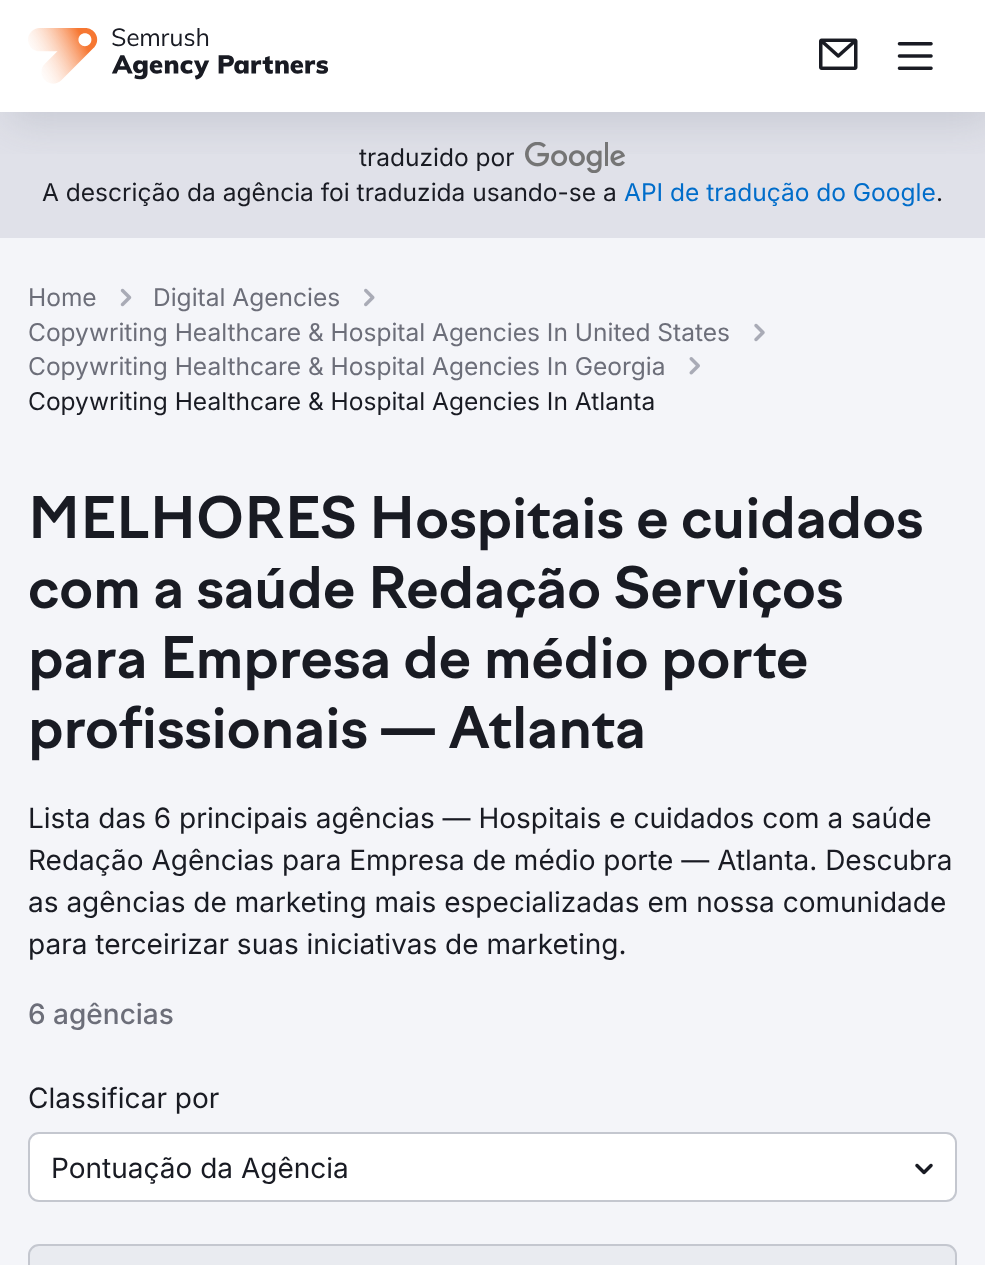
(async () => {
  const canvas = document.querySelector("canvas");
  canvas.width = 985;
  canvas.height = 1265;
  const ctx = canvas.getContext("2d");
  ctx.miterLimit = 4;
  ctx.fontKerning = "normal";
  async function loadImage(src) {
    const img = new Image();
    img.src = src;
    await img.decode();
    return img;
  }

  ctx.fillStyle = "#ffffff";
  ctx.fillRect(0, 0, 985, 1265);
  ctx.fillStyle = "#e0e1e9";
  ctx.fillRect(0, 112, 985, 126);
  ctx.drawImage(await loadImage("img/4.png"), 525, 142, 100, 31);
  ctx.save();
  ctx.beginPath();
  ctx.rect(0, 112, 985, 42);
  ctx.clip();
  ctx.fillStyle = "rgba(137, 141, 154, 0.3)";
  ctx.filter = "blur(22px)";
  ctx.beginPath();
  ctx.rect(9, 9, 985, 112);
  ctx.fill();
  ctx.filter = "none";
  ctx.restore();
  ctx.drawImage(await loadImage("img/1.png"), 28, 28, 301, 56);
  ctx.drawImage(await loadImage("img/2.png"), 819, 38, 39, 32);
  ctx.drawImage(await loadImage("img/3.png"), 897, 42, 36, 28);
  ctx.fillStyle = "#f4f5f9";
  ctx.fillRect(0, 238, 985, 1027);
  ctx.drawImage(await loadImage("img/5.png"), 120, 288, 12, 19);
  ctx.drawImage(await loadImage("img/6.png"), 364, 288, 11, 19);
  ctx.drawImage(await loadImage("img/7.png"), 754, 323, 11, 19);
  ctx.drawImage(await loadImage("img/8.png"), 689, 357, 11, 18);
  ctx.fillStyle = "#ffffff";
  ctx.beginPath();
  ctx.roundRect(29, 1133, 927, 68, 10);
  ctx.fill();
  ctx.strokeStyle = "#c4c7cf";
  ctx.lineWidth = 2;
  ctx.stroke();
  ctx.drawImage(await loadImage("img/9.png"), 915, 1163, 18, 12);
  ctx.fillStyle = "#e9ebf0";
  ctx.beginPath();
  ctx.roundRect(29, 1245, 927, 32, 10);
  ctx.fill();
  ctx.stroke();
  ctx.font = "24.5px Inter";
  ctx.fillStyle = "#191b23";
  ctx.fillText("traduzido por", 359, 166);
  ctx.fillText("A descrição da agência foi traduzida usando-se a", 42, 201);
  ctx.fillStyle = "#006dca";
  ctx.fillText("API de tradução do Google", 624, 201);
  ctx.fillStyle = "#191b23";
  ctx.fillText(".", 936, 201);
  ctx.fillStyle = "#6c6e79";
  for (const [text, x, y] of [
    ["Home", 28, 306],
    ["Digital Agencies", 153, 306],
    ["Copywriting Healthcare & Hospital Agencies In United States", 28, 341],
    ["Copywriting Healthcare & Hospital Agencies In Georgia", 28, 375],
  ]) {
    ctx.fillText(text, x, y);
  }
  ctx.fillStyle = "#191b23";
  ctx.fillText("Copywriting Healthcare & Hospital Agencies In Atlanta", 28, 410);
  ctx.font = "bold 56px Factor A";
  for (const [text, x, y] of [
    ["MELHORES Hospitais e cuidados", 28, 538],
    ["com a saúde Redação Serviços", 28, 608],
    ["para Empresa de médio porte", 28, 678],
    ["profissionais — Atlanta", 28, 748],
  ]) {
    ctx.fillText(text, x, y);
  }
  ctx.font = "28px Inter";
  for (const [text, x, y] of [
    ["Lista das 6 principais agências — Hospitais e cuidados com a saúde", 28, 828],
    ["Redação Agências para Empresa de médio porte — Atlanta. Descubra", 28, 870],
    ["as agências de marketing mais especializadas em nossa comunidade", 28, 912],
    ["para terceirizar suas iniciativas de marketing.", 28, 954],
  ]) {
    ctx.fillText(text, x, y);
  }
  ctx.font = "500 28px Inter";
  ctx.fillStyle = "#6c6e79";
  ctx.fillText("6 agências", 28, 1024);
  ctx.font = "28px Inter";
  ctx.fillStyle = "#191b23";
  ctx.fillText("Classificar por", 28, 1108);
  ctx.fillText("Pontuação da Agência", 51, 1178);
})();
